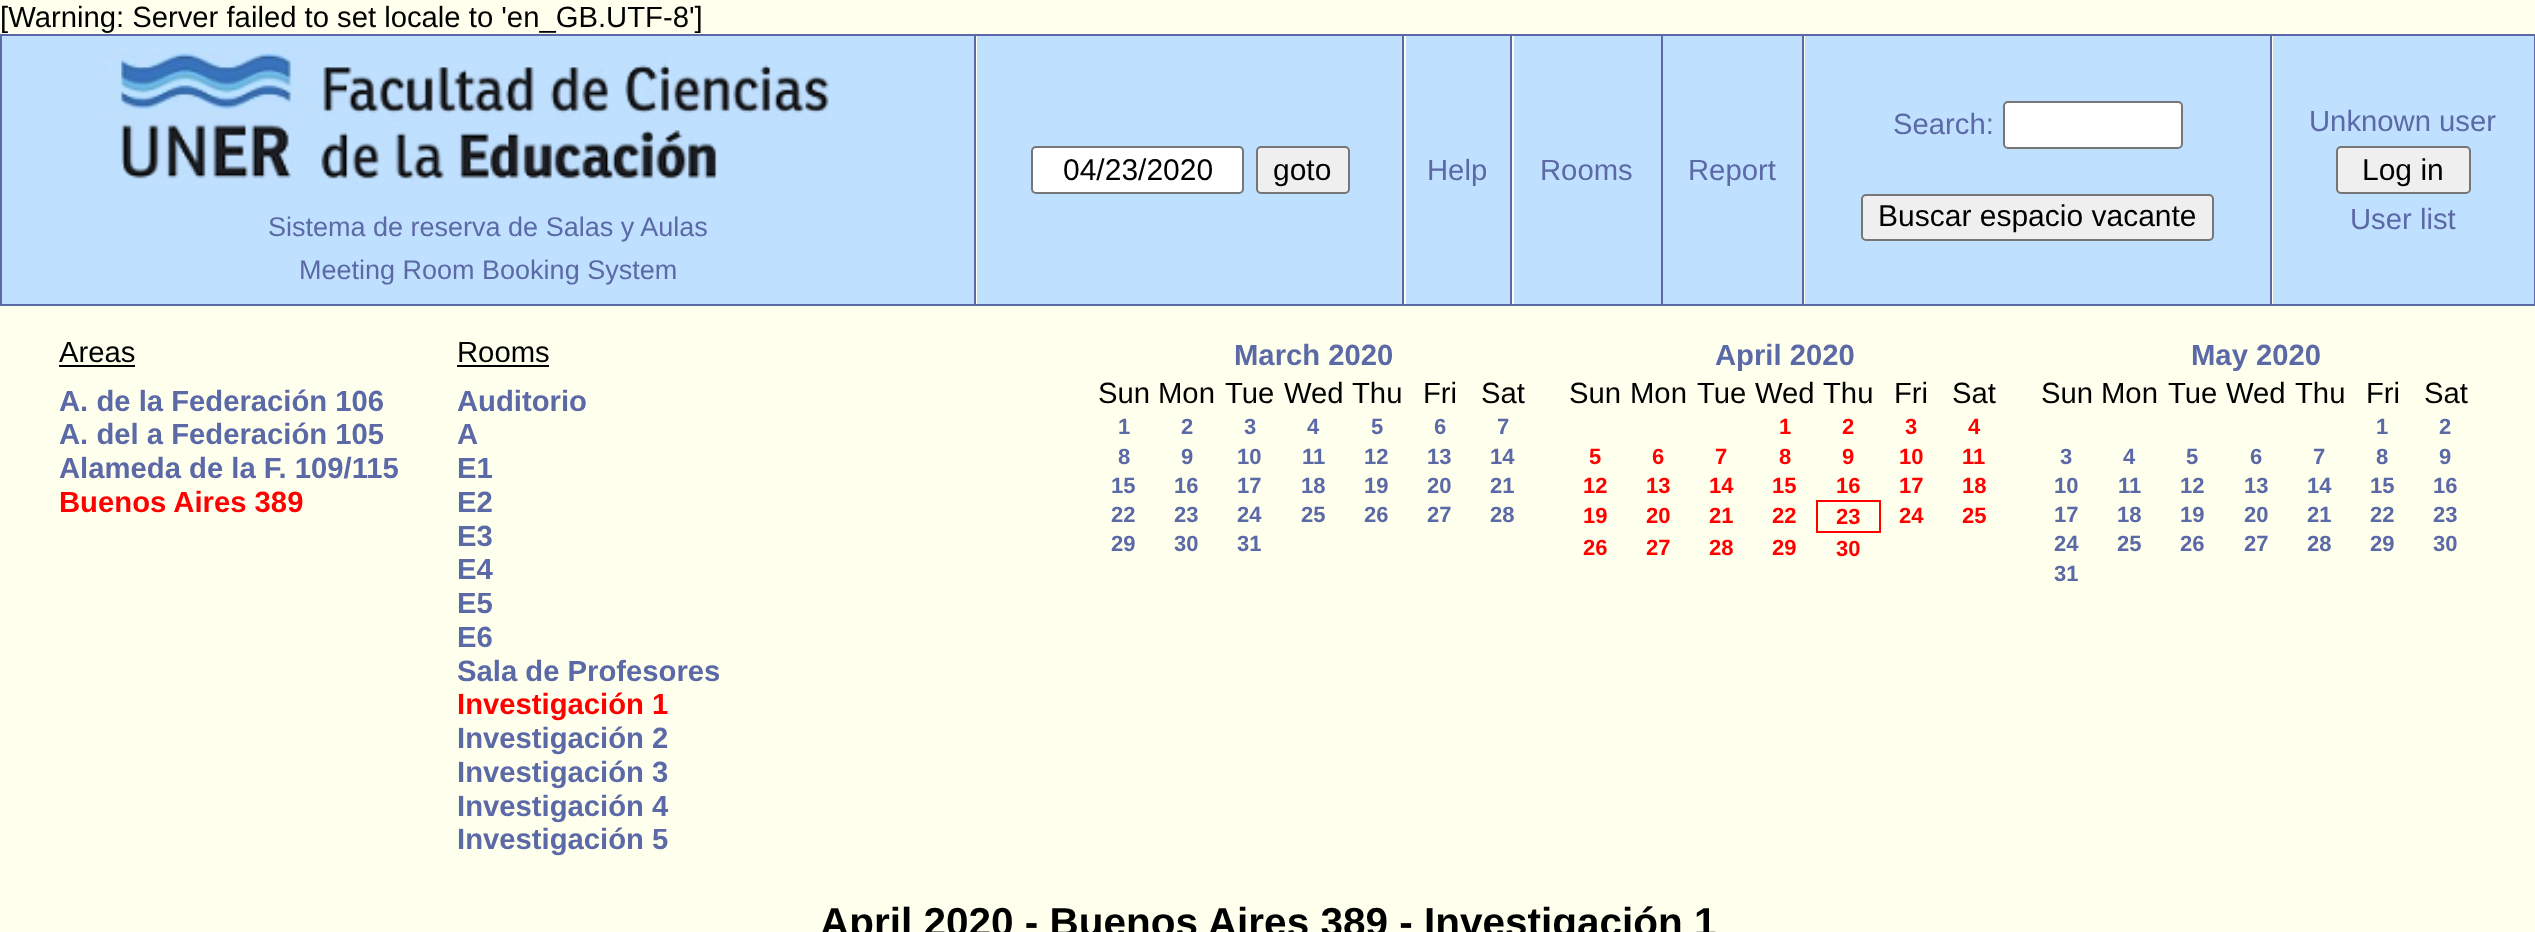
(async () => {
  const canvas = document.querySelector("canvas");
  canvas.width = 2535;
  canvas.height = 932;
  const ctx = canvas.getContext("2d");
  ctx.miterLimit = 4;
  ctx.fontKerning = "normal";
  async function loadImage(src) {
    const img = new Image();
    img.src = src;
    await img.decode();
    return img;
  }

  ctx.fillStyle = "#ffffed";
  ctx.fillRect(0, 0, 2535, 932);
  for (const [x, y, w, h, color] of [
    [0, 34, 2535, 2, "#5b69a6"],
    [2534, 34, 1, 272, "#5b69a6"],
    [0, 304, 2535, 2, "#5b69a6"],
    [0, 34, 2, 272, "#5b69a6"],
    [977, 36, 425, 268, "#c0e0ff"],
    [974, 34, 2, 272, "#5b69a6"],
  ]) {
    ctx.fillStyle = color;
    ctx.fillRect(x, y, w, h);
  }
  ctx.fillStyle = "#ffffff";
  ctx.beginPath();
  ctx.roundRect(1032, 147, 211, 46, 4);
  ctx.fill();
  ctx.strokeStyle = "#767676";
  ctx.lineWidth = 2;
  ctx.stroke();
  ctx.fillStyle = "#efefef";
  ctx.beginPath();
  ctx.roundRect(1257, 147, 92, 46, 4);
  ctx.fill();
  ctx.stroke();
  for (const [x, y, w, h, color] of [
    [1406, 36, 104, 268, "#c0e0ff"],
    [1402, 34, 2, 272, "#5b69a6"],
    [1514, 36, 147, 268, "#c0e0ff"],
    [1510, 34, 2, 272, "#5b69a6"],
    [1663, 36, 139, 268, "#c0e0ff"],
    [1661, 34, 2, 272, "#5b69a6"],
    [1805, 36, 465, 268, "#c0e0ff"],
    [1802, 34, 2, 272, "#5b69a6"],
  ]) {
    ctx.fillStyle = color;
    ctx.fillRect(x, y, w, h);
  }
  ctx.fillStyle = "#ffffff";
  ctx.beginPath();
  ctx.roundRect(2004, 102, 178, 46, 4);
  ctx.fill();
  ctx.stroke();
  ctx.fillStyle = "#efefef";
  ctx.beginPath();
  ctx.roundRect(1862, 195, 351, 45, 4);
  ctx.fill();
  ctx.stroke();
  ctx.fillStyle = "#c0e0ff";
  ctx.fillRect(2273, 36, 261, 268);
  ctx.fillStyle = "#5b69a6";
  ctx.fillRect(2270, 34, 2, 272);
  ctx.fillStyle = "#efefef";
  ctx.beginPath();
  ctx.roundRect(2337, 147, 133, 46, 4);
  ctx.fill();
  ctx.stroke();
  ctx.fillStyle = "#c0e0ff";
  ctx.fillRect(2, 36, 972, 268);
  ctx.drawImage(await loadImage("img/1.png"), 104, 50, 725, 134);
  for (const [x, y, w, h, color] of [
    [59, 365, 76, 2, "#000000"],
    [457, 365, 92, 2, "#000000"],
    [1816, 500, 65, 2, "#ff0000"],
    [1879, 500, 2, 33, "#ff0000"],
    [1816, 531, 65, 2, "#ff0000"],
    [1816, 500, 2, 33, "#ff0000"],
  ]) {
    ctx.fillStyle = color;
    ctx.fillRect(x, y, w, h);
  }
  ctx.font = "29.25px Liberation Sans";
  ctx.fillStyle = "#000000";
  ctx.fillText("[Warning: Server failed to set locale to 'en_GB.UTF-8']", 0, 27);
  ctx.font = "30px Liberation Sans";
  ctx.fillText("04/23/2020", 1063, 180);
  ctx.fillText("goto", 1273, 180);
  ctx.font = "29.25px Liberation Sans";
  ctx.fillStyle = "#5b69a6";
  for (const [text, x, y] of [
    ["Help", 1427, 180],
    ["Rooms", 1540, 180],
    ["Report", 1688, 180],
    ["Search:", 1893, 134],
  ]) {
    ctx.fillText(text, x, y);
  }
  ctx.font = "30px Liberation Sans";
  ctx.fillStyle = "#000000";
  ctx.fillText("Buscar espacio vacante", 1878, 226);
  ctx.font = "29.25px Liberation Sans";
  ctx.fillStyle = "#5b69a6";
  ctx.fillText("Unknown user", 2309, 131);
  ctx.font = "30px Liberation Sans";
  ctx.fillStyle = "#000000";
  ctx.fillText("Log in", 2362, 180);
  ctx.font = "29.25px Liberation Sans";
  ctx.fillStyle = "#5b69a6";
  ctx.fillText("User list", 2350, 229);
  ctx.font = "27px Liberation Sans";
  ctx.fillText("Sistema de reserva de Salas y Aulas", 268, 236);
  ctx.fillText("Meeting Room Booking System", 299, 279);
  ctx.font = "29.25px Liberation Sans";
  ctx.fillStyle = "#000000";
  ctx.fillText("Areas", 59, 362);
  ctx.font = "bold 29.25px Liberation Sans";
  ctx.fillStyle = "#5b69a6";
  for (const [text, x, y] of [
    ["A. de la Federación 106", 59, 411],
    ["A. del a Federación 105", 59, 444],
    ["Alameda de la F. 109/115", 59, 478],
  ]) {
    ctx.fillText(text, x, y);
  }
  ctx.fillStyle = "#ff0000";
  ctx.fillText("Buenos Aires 389", 59, 512);
  ctx.font = "29.25px Liberation Sans";
  ctx.fillStyle = "#000000";
  ctx.fillText("Rooms", 457, 362);
  ctx.font = "bold 29.25px Liberation Sans";
  ctx.fillStyle = "#5b69a6";
  for (const [text, x, y] of [
    ["Auditorio", 457, 411],
    ["A", 457, 444],
    ["E1", 457, 478],
    ["E2", 457, 512],
    ["E3", 457, 546],
    ["E4", 457, 579],
    ["E5", 457, 613],
    ["E6", 457, 647],
    ["Sala de Profesores", 457, 681],
  ]) {
    ctx.fillText(text, x, y);
  }
  ctx.fillStyle = "#ff0000";
  ctx.fillText("Investigación 1", 457, 714);
  ctx.fillStyle = "#5b69a6";
  for (const [text, x, y] of [
    ["Investigación 2", 457, 748],
    ["Investigación 3", 457, 782],
    ["Investigación 4", 457, 816],
    ["Investigación 5", 457, 849],
    ["March 2020", 1234, 365],
  ]) {
    ctx.fillText(text, x, y);
  }
  ctx.font = "29.25px Liberation Sans";
  ctx.fillStyle = "#000000";
  for (const [text, x, y] of [
    ["Sun", 1098, 403],
    ["Mon", 1158, 403],
    ["Tue", 1225, 403],
    ["Wed", 1284, 403],
    ["Thu", 1352, 403],
    ["Fri", 1423, 403],
    ["Sat", 1481, 403],
  ]) {
    ctx.fillText(text, x, y);
  }
  ctx.font = "bold 22px Liberation Sans";
  ctx.fillStyle = "#5b69a6";
  for (const [text, x, y] of [
    ["1", 1118, 434],
    ["2", 1181, 434],
    ["3", 1244, 434],
    ["4", 1307, 434],
    ["5", 1371, 434],
    ["6", 1434, 434],
    ["7", 1497, 434],
    ["8", 1118, 464],
    ["9", 1181, 464],
    ["10", 1237, 464],
    ["11", 1302, 464],
    ["12", 1364, 464],
    ["13", 1427, 464],
    ["14", 1490, 464],
    ["15", 1111, 493],
    ["16", 1174, 493],
    ["17", 1237, 493],
    ["18", 1301, 493],
    ["19", 1364, 493],
    ["20", 1427, 493],
    ["21", 1490, 493],
    ["22", 1111, 522],
    ["23", 1174, 522],
    ["24", 1237, 522],
    ["25", 1301, 522],
    ["26", 1364, 522],
    ["27", 1427, 522],
    ["28", 1490, 522],
    ["29", 1111, 551],
    ["30", 1174, 551],
    ["31", 1237, 551],
  ]) {
    ctx.fillText(text, x, y);
  }
  ctx.font = "bold 29.25px Liberation Sans";
  ctx.fillText("April 2020", 1715, 365);
  ctx.font = "29.25px Liberation Sans";
  ctx.fillStyle = "#000000";
  for (const [text, x, y] of [
    ["Sun", 1569, 403],
    ["Mon", 1630, 403],
    ["Tue", 1697, 403],
    ["Wed", 1755, 403],
    ["Thu", 1823, 403],
    ["Fri", 1894, 403],
    ["Sat", 1952, 403],
  ]) {
    ctx.fillText(text, x, y);
  }
  ctx.font = "bold 22px Liberation Sans";
  ctx.fillStyle = "#ff0000";
  for (const [text, x, y] of [
    ["1", 1779, 434],
    ["2", 1842, 434],
    ["3", 1905, 434],
    ["4", 1968, 434],
    ["5", 1589, 464],
    ["6", 1652, 464],
    ["7", 1715, 464],
    ["8", 1779, 464],
    ["9", 1842, 464],
    ["10", 1899, 464],
    ["11", 1962, 464],
    ["12", 1583, 493],
    ["13", 1646, 493],
    ["14", 1709, 493],
    ["15", 1772, 493],
    ["16", 1836, 493],
    ["17", 1899, 493],
    ["18", 1962, 493],
    ["19", 1583, 523],
    ["20", 1646, 523],
    ["21", 1709, 523],
    ["22", 1772, 523],
    ["23", 1836, 524],
    ["24", 1899, 523],
    ["25", 1962, 523],
    ["26", 1583, 555],
    ["27", 1646, 555],
    ["28", 1709, 555],
    ["29", 1772, 555],
    ["30", 1836, 556],
  ]) {
    ctx.fillText(text, x, y);
  }
  ctx.font = "bold 29.25px Liberation Sans";
  ctx.fillStyle = "#5b69a6";
  ctx.fillText("May 2020", 2191, 365);
  ctx.font = "29.25px Liberation Sans";
  ctx.fillStyle = "#000000";
  for (const [text, x, y] of [
    ["Sun", 2041, 403],
    ["Mon", 2101, 403],
    ["Tue", 2168, 403],
    ["Wed", 2226, 403],
    ["Thu", 2295, 403],
    ["Fri", 2366, 403],
    ["Sat", 2424, 403],
  ]) {
    ctx.fillText(text, x, y);
  }
  ctx.font = "bold 22px Liberation Sans";
  ctx.fillStyle = "#5b69a6";
  for (const [text, x, y] of [
    ["1", 2376, 434],
    ["2", 2439, 434],
    ["3", 2060, 464],
    ["4", 2123, 464],
    ["5", 2186, 464],
    ["6", 2250, 464],
    ["7", 2313, 464],
    ["8", 2376, 464],
    ["9", 2439, 464],
    ["10", 2054, 493],
    ["11", 2118, 493],
    ["12", 2180, 493],
    ["13", 2244, 493],
    ["14", 2307, 493],
    ["15", 2370, 493],
    ["16", 2433, 493],
    ["17", 2054, 522],
    ["18", 2117, 522],
    ["19", 2180, 522],
    ["20", 2244, 522],
    ["21", 2307, 522],
    ["22", 2370, 522],
    ["23", 2433, 522],
    ["24", 2054, 551],
    ["25", 2117, 551],
    ["26", 2180, 551],
    ["27", 2244, 551],
    ["28", 2307, 551],
    ["29", 2370, 551],
    ["30", 2433, 551],
    ["31", 2054, 581],
  ]) {
    ctx.fillText(text, x, y);
  }
  ctx.font = "bold 40.5px Liberation Sans";
  ctx.fillStyle = "#000000";
  ctx.fillText("April 2020 - Buenos Aires 389 - Investigación 1", 820, 936);
})();
